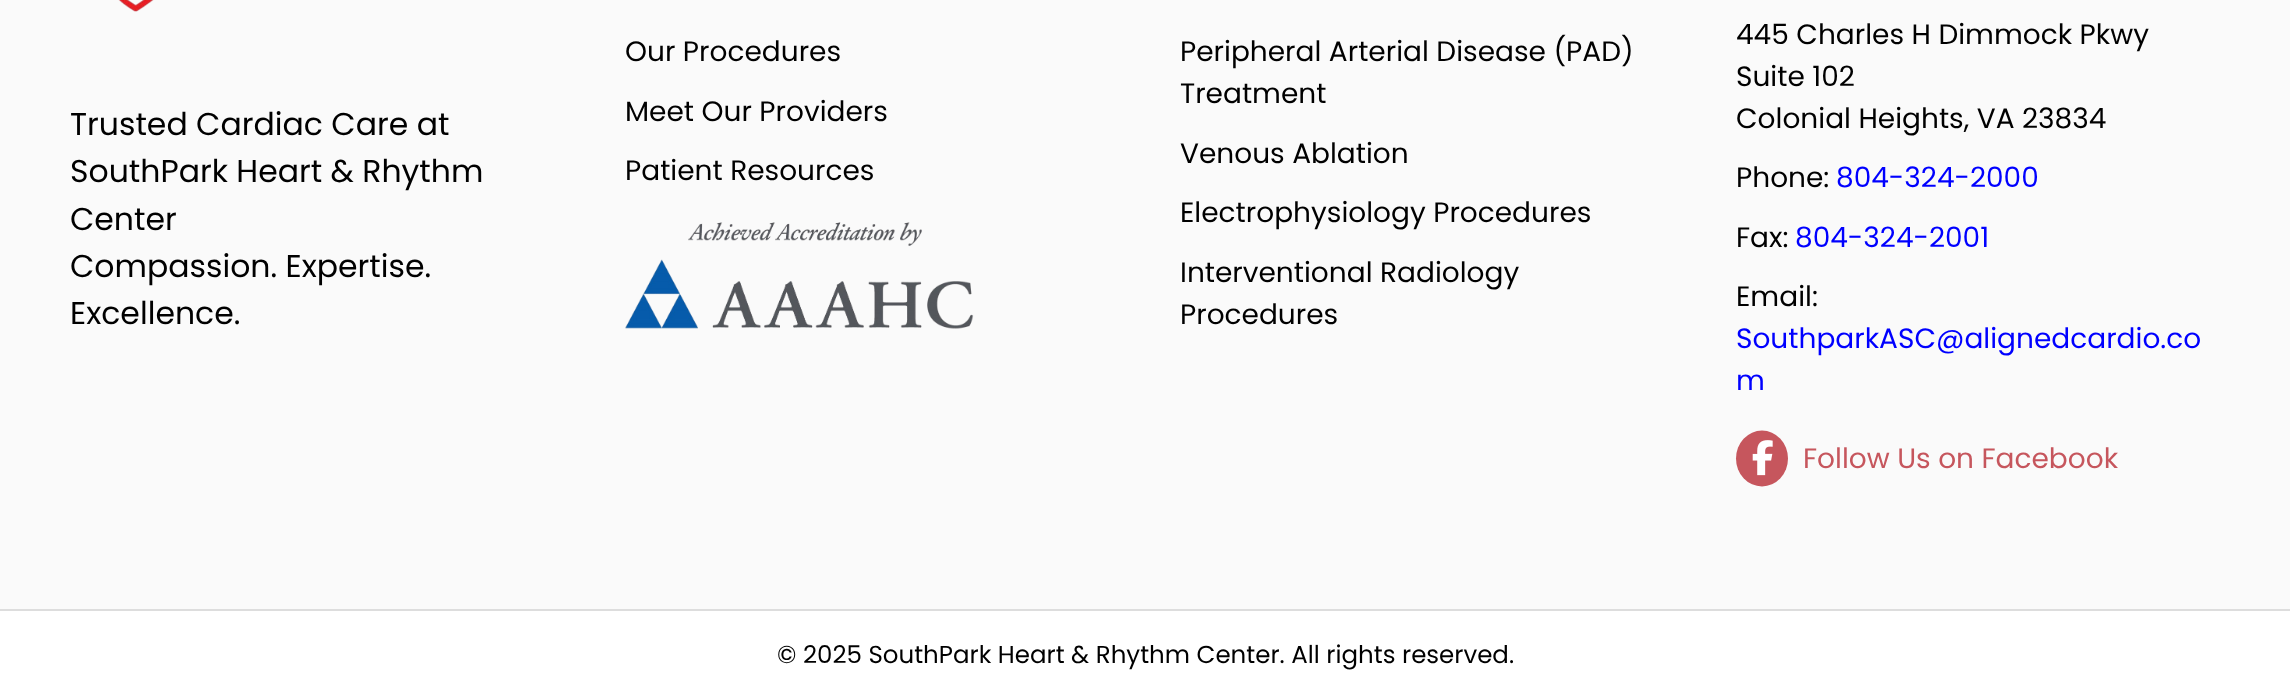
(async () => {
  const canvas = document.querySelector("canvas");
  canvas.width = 2290;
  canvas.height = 682;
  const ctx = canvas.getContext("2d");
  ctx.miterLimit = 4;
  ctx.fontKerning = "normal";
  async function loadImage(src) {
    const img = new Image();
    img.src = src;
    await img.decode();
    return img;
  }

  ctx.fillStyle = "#fafafa";
  ctx.fillRect(0, 0, 2290, 682);
  ctx.drawImage(await loadImage("img/1.png"), 118, 0, 36, 12);
  ctx.drawImage(await loadImage("img/2.png"), 625, 222, 349, 107);
  ctx.fillStyle = "#c6565d";
  ctx.beginPath();
  ctx.ellipse(1762, 458.5, 26, 28, 0, 0, Math.PI * 2);
  ctx.fill();
  ctx.drawImage(await loadImage("img/3.png"), 1752, 440, 21, 36);
  ctx.fillStyle = "#ffffff";
  ctx.fillRect(0, 611, 2290, 71);
  ctx.fillStyle = "#dddddd";
  ctx.fillRect(0, 609, 2290, 2);
  ctx.font = "31.5px Poppins";
  ctx.fillStyle = "#000000";
  for (const [text, x, y] of [
    ["Trusted Cardiac Care at", 70, 135],
    ["SouthPark Heart & Rhythm", 70, 182],
    ["Center", 70, 230],
    ["Compassion. Expertise.", 70, 277],
    ["Excellence.", 70, 324],
  ]) {
    ctx.fillText(text, x, y);
  }
  ctx.font = "28px Poppins";
  for (const [text, x, y] of [
    ["Our Procedures", 625, 61],
    ["Meet Our Providers", 625, 121],
    ["Patient Resources", 625, 180],
    ["Peripheral Arterial Disease (PAD)", 1180, 61],
    ["Treatment", 1180, 103],
    ["Venous Ablation", 1180, 163],
    ["Electrophysiology Procedures", 1180, 222],
    ["Interventional Radiology", 1180, 282],
    ["Procedures", 1180, 324],
    ["445 Charles H Dimmock Pkwy", 1736, 44],
    ["Suite 102", 1736, 86],
    ["Colonial Heights, VA 23834", 1736, 128],
    ["Phone:", 1736, 187],
  ]) {
    ctx.fillText(text, x, y);
  }
  ctx.fillStyle = "#0000ff";
  ctx.fillText("804-324-2000", 1836, 187);
  ctx.fillStyle = "#000000";
  ctx.fillText("Fax:", 1736, 247);
  ctx.fillStyle = "#0000ff";
  ctx.fillText("804-324-2001", 1795, 247);
  ctx.fillStyle = "#000000";
  ctx.fillText("Email:", 1736, 306);
  ctx.fillStyle = "#0000ff";
  ctx.fillText("SouthparkASC@alignedcardio.co", 1736, 348);
  ctx.fillText("m", 1736, 390);
  ctx.fillStyle = "#c6565d";
  ctx.fillText("Follow Us on Facebook", 1803, 468);
  ctx.font = "24.5px Poppins";
  ctx.fillStyle = "#000000";
  ctx.fillText("© 2025 SouthPark Heart & Rhythm Center. All rights reserved.", 777, 663);
})();
